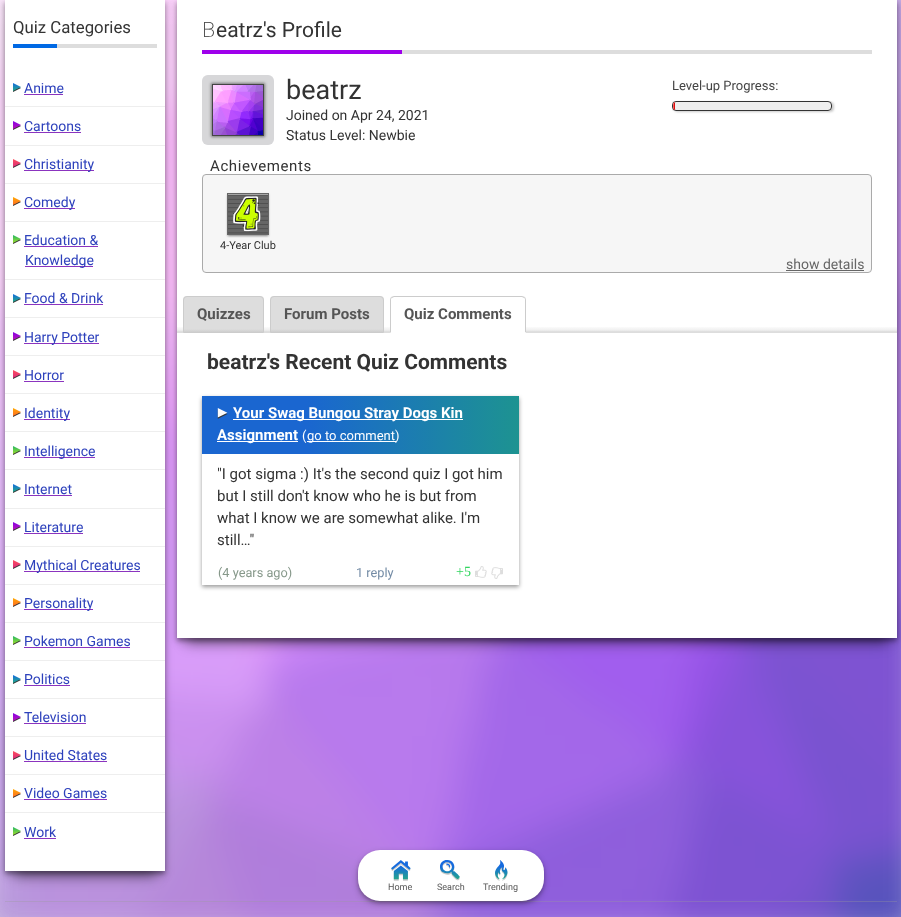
(async () => {
  const canvas = document.querySelector("canvas");
  canvas.width = 901;
  canvas.height = 917;
  const ctx = canvas.getContext("2d");
  ctx.miterLimit = 4;
  ctx.fontKerning = "normal";
  async function loadImage(src) {
    const img = new Image();
    img.src = src;
    await img.decode();
    return img;
  }
  let gradient, path;

  ctx.fillStyle = "#ffffff";
  ctx.fillRect(0, 0, 901, 917);
  gradient = ctx.createLinearGradient(450, -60, 451, 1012);
  gradient.addColorStop(0, "#fcfcfc");
  gradient.addColorStop(0.08, "#eeeeee");
  ctx.fillStyle = gradient;
  ctx.fillRect(0, 0, 901, 917);
  ctx.drawImage(await loadImage("img/1.png"), 0, 0, 901, 917);
  ctx.fillStyle = "rgba(0, 0, 0, 0.3)";
  ctx.filter = "blur(2px)";
  ctx.beginPath();
  ctx.rect(5, 3, 160, 871);
  ctx.fill();
  ctx.filter = "none";
  ctx.filter = "blur(2px)";
  ctx.beginPath();
  ctx.rect(177, 3, 720, 638);
  ctx.fill();
  ctx.filter = "none";
  ctx.fillStyle = "rgba(0, 0, 0, 0.16)";
  ctx.filter = "blur(4.5px)";
  ctx.beginPath();
  ctx.rect(176, 2, 722, 640);
  ctx.fill();
  ctx.filter = "none";
  ctx.fillStyle = "rgba(0, 0, 0, 0.4)";
  ctx.filter = "blur(6.5px)";
  ctx.beginPath();
  ctx.rect(186, 24, 702, 620);
  ctx.fill();
  ctx.filter = "none";
  ctx.fillStyle = "#ffffff";
  ctx.fillRect(177, 0, 720, 638);
  ctx.fillStyle = "#dddddd";
  ctx.fillRect(177, 332, 720, 1);
  ctx.fillStyle = "rgba(0, 0, 0, 0.16)";
  ctx.filter = "blur(4.5px)";
  ctx.beginPath();
  ctx.rect(4, 2, 162, 873);
  ctx.fill();
  ctx.filter = "none";
  ctx.fillStyle = "rgba(0, 0, 0, 0.4)";
  ctx.filter = "blur(6.5px)";
  ctx.beginPath();
  ctx.rect(14, 24, 142, 853);
  ctx.fill();
  ctx.filter = "none";
  for (const [x, y, w, h, color] of [
    [5, 0, 160, 871, "#ffffff"],
    [57, 44, 100, 4, "#dddddd"],
    [13, 44, 44, 4, "#0069e4"],
    [5, 106, 160, 1, "#eeeeee"],
  ]) {
    ctx.fillStyle = color;
    ctx.fillRect(x, y, w, h);
  }
  ctx.drawImage(await loadImage("img/2.png"), 13, 83, 8, 9);
  ctx.fillStyle = "#8b34bf";
  ctx.fillRect(24, 94, 39, 1);
  ctx.fillStyle = "#eeeeee";
  ctx.fillRect(5, 145, 160, 1);
  ctx.drawImage(await loadImage("img/3.png"), 13, 121, 8, 9);
  ctx.fillStyle = "#8b34bf";
  ctx.fillRect(24, 132, 57, 1);
  ctx.fillStyle = "#eeeeee";
  ctx.fillRect(5, 183, 160, 1);
  ctx.drawImage(await loadImage("img/4.png"), 13, 159, 8, 9);
  ctx.fillStyle = "#8b34bf";
  ctx.fillRect(24, 170, 70, 1);
  ctx.fillStyle = "#eeeeee";
  ctx.fillRect(5, 221, 160, 1);
  ctx.drawImage(await loadImage("img/5.png"), 13, 197, 8, 9);
  ctx.fillStyle = "#8b34bf";
  ctx.fillRect(24, 208, 51, 1);
  ctx.fillStyle = "#eeeeee";
  ctx.fillRect(5, 279, 160, 1);
  ctx.drawImage(await loadImage("img/6.png"), 13, 235, 8, 9);
  for (const [x, y, w, h, color] of [
    [24, 246, 74, 1, "#8b34bf"],
    [25, 266, 68, 1, "#8b34bf"],
    [5, 317, 160, 1, "#eeeeee"],
  ]) {
    ctx.fillStyle = color;
    ctx.fillRect(x, y, w, h);
  }
  ctx.drawImage(await loadImage("img/7.png"), 13, 294, 8, 9);
  ctx.fillStyle = "#8b34bf";
  ctx.fillRect(24, 304, 79, 1);
  ctx.fillStyle = "#eeeeee";
  ctx.fillRect(5, 355, 160, 1);
  ctx.drawImage(await loadImage("img/8.png"), 13, 332, 8, 9);
  ctx.fillStyle = "#8b34bf";
  ctx.fillRect(24, 343, 75, 1);
  ctx.fillStyle = "#eeeeee";
  ctx.fillRect(5, 393, 160, 1);
  ctx.drawImage(await loadImage("img/9.png"), 13, 370, 8, 9);
  ctx.fillStyle = "#8b34bf";
  ctx.fillRect(24, 381, 40, 1);
  ctx.fillStyle = "#eeeeee";
  ctx.fillRect(5, 431, 160, 1);
  ctx.drawImage(await loadImage("img/10.png"), 13, 408, 8, 9);
  ctx.fillStyle = "#8b34bf";
  ctx.fillRect(24, 419, 46, 1);
  ctx.fillStyle = "#eeeeee";
  ctx.fillRect(5, 469, 160, 1);
  ctx.drawImage(await loadImage("img/11.png"), 13, 446, 8, 9);
  ctx.fillStyle = "#8b34bf";
  ctx.fillRect(24, 457, 71, 1);
  ctx.fillStyle = "#eeeeee";
  ctx.fillRect(5, 508, 160, 1);
  ctx.drawImage(await loadImage("img/7.png"), 13, 484, 8, 9);
  ctx.fillStyle = "#8b34bf";
  ctx.fillRect(24, 495, 48, 1);
  ctx.fillStyle = "#eeeeee";
  ctx.fillRect(5, 546, 160, 1);
  ctx.drawImage(await loadImage("img/8.png"), 13, 522, 8, 9);
  ctx.fillStyle = "#8b34bf";
  ctx.fillRect(24, 533, 59, 1);
  ctx.fillStyle = "#eeeeee";
  ctx.fillRect(5, 584, 160, 1);
  ctx.drawImage(await loadImage("img/9.png"), 13, 560, 8, 9);
  ctx.fillStyle = "#8b34bf";
  ctx.fillRect(24, 571, 116, 1);
  ctx.fillStyle = "#eeeeee";
  ctx.fillRect(5, 622, 160, 1);
  ctx.drawImage(await loadImage("img/10.png"), 13, 598, 8, 9);
  ctx.fillStyle = "#8b34bf";
  ctx.fillRect(24, 609, 69, 1);
  ctx.fillStyle = "#eeeeee";
  ctx.fillRect(5, 660, 160, 1);
  ctx.drawImage(await loadImage("img/12.png"), 13, 636, 8, 9);
  ctx.fillStyle = "#8b34bf";
  ctx.fillRect(24, 647, 106, 1);
  ctx.fillStyle = "#eeeeee";
  ctx.fillRect(5, 698, 160, 1);
  ctx.drawImage(await loadImage("img/13.png"), 13, 675, 8, 9);
  ctx.fillStyle = "#8b34bf";
  ctx.fillRect(24, 685, 46, 1);
  ctx.fillStyle = "#eeeeee";
  ctx.fillRect(5, 736, 160, 1);
  ctx.drawImage(await loadImage("img/14.png"), 13, 713, 8, 9);
  ctx.fillStyle = "#8b34bf";
  ctx.fillRect(24, 723, 62, 1);
  ctx.fillStyle = "#eeeeee";
  ctx.fillRect(5, 774, 160, 1);
  ctx.drawImage(await loadImage("img/15.png"), 13, 751, 8, 9);
  ctx.fillStyle = "#8b34bf";
  ctx.fillRect(24, 761, 83, 1);
  ctx.fillStyle = "#eeeeee";
  ctx.fillRect(5, 812, 160, 1);
  ctx.drawImage(await loadImage("img/16.png"), 13, 789, 8, 9);
  ctx.fillStyle = "#8b34bf";
  ctx.fillRect(24, 799, 83, 1);
  ctx.drawImage(await loadImage("img/6.png"), 13, 827, 8, 9);
  for (const [x, y, w, h, color] of [
    [24, 838, 32, 1, "#8b34bf"],
    [402, 50, 470, 4, "#dddddd"],
    [202, 50, 200, 4, "#9e00eb"],
  ]) {
    ctx.fillStyle = color;
    ctx.fillRect(x, y, w, h);
  }
  ctx.fillStyle = "#cfcfd2";
  ctx.beginPath();
  ctx.roundRect(202, 75, 72, 70, 6);
  ctx.fill();
  ctx.fillStyle = "rgba(255, 255, 255, 0.17)";
  ctx.beginPath();
  ctx.roundRect(202, 75, 72, 70, 6);
  ctx.fill();
  ctx.fillStyle = "rgba(22, 22, 22, 0.5)";
  ctx.filter = "blur(1.5px)";
  ctx.beginPath();
  ctx.rect(211, 83, 54, 54);
  ctx.fill();
  ctx.filter = "none";
  ctx.strokeStyle = "#444444";
  ctx.strokeRect(212.5, 84.5, 51, 51);
  ctx.drawImage(await loadImage("img/17.png"), 213, 85, 50, 50);
  ctx.fillStyle = "rgba(44, 44, 44, 0.25)";
  ctx.filter = "blur(1px)";
  ctx.beginPath();
  ctx.roundRect(674, 102, 160, 10, 4);
  ctx.fill();
  ctx.filter = "none";
  ctx.fillStyle = "#f6f6f6";
  ctx.beginPath();
  ctx.roundRect(672, 101, 160, 10, 4);
  ctx.fill();
  ctx.fillStyle = "rgba(0, 0, 0, 0.03)";
  ctx.fillRect(672, 101, 160, 10);
  ctx.beginPath();
  ctx.roundRect(672.5, 101.5, 159, 9, 3.5);
  ctx.strokeStyle = "#333333";
  ctx.stroke();
  ctx.save();
  ctx.beginPath();
  ctx.roundRect(673, 102, 158, 8, 3);
  ctx.clip();
  ctx.fillStyle = "#ff1111";
  ctx.fillRect(673, 102, 2, 8);
  ctx.restore();
  ctx.save();
  ctx.beginPath();
  ctx.rect(673, 102, 2, 8);
  ctx.clip();
  ctx.fillStyle = "#d90e0e";
  path = new Path2D("M676 102H774V110H676L674 109V103Z");
  ctx.fill(path);
  ctx.fillStyle = "rgba(255, 255, 255, 0.3)";
  path = new Path2D("M674 103V109C672 107 672 103 675 102H774V110H676V103Z");
  ctx.fill(path);
  ctx.restore();
  ctx.fillStyle = "#f6f6f6";
  ctx.beginPath();
  ctx.roundRect(202.5, 174.5, 669, 98, 3.5);
  ctx.fill();
  ctx.strokeStyle = "#aaaaaa";
  ctx.stroke();
  ctx.fillStyle = "rgba(0, 0, 0, 0.15)";
  ctx.filter = "blur(1px)";
  ctx.beginPath();
  ctx.rect(227, 194, 42, 42);
  ctx.fill();
  ctx.filter = "none";
  ctx.fillStyle = "rgba(0, 0, 0, 0.34)";
  ctx.filter = "blur(1px)";
  ctx.beginPath();
  ctx.rect(228, 196, 40, 40);
  ctx.fill();
  ctx.filter = "none";
  ctx.drawImage(await loadImage("img/18.png"), 228, 195, 40, 39);
  ctx.fillStyle = "#a5a5a5";
  ctx.fillRect(228, 194, 40, 1);
  ctx.strokeStyle = "#666666";
  ctx.strokeRect(227.5, 193.5, 41, 41);
  ctx.fillStyle = "#666666";
  ctx.fillRect(786, 270, 78, 1);
  gradient = ctx.createLinearGradient(537, 332, 537, 326);
  gradient.addColorStop(0, "#d9d9d9");
  gradient.addColorStop(0.33, "#f0f0f0");
  gradient.addColorStop(1, "#ffffff");
  ctx.fillStyle = gradient;
  ctx.fillRect(177, 327, 720, 5);
  ctx.fillStyle = "#dddddd";
  ctx.beginPath();
  ctx.roundRect(183, 296, 81, 37, [4, 4, 0, 0]);
  ctx.fill();
  gradient = ctx.createLinearGradient(224, 332, 224, 329);
  gradient.addColorStop(0, "#cecece");
  gradient.addColorStop(1, "#dddddd");
  ctx.fillStyle = gradient;
  ctx.fillRect(184, 329, 79, 3);
  ctx.beginPath();
  ctx.roundRect(183.5, 296.5, 80, 36, [3.5, 3.5, 0, 0]);
  ctx.strokeStyle = "#cccccc";
  ctx.stroke();
  ctx.fillStyle = "#dddddd";
  ctx.beginPath();
  ctx.roundRect(270, 296, 114, 37, [4, 4, 0, 0]);
  ctx.fill();
  gradient = ctx.createLinearGradient(327, 332, 327, 329);
  gradient.addColorStop(0, "#cecece");
  gradient.addColorStop(1, "#dddddd");
  ctx.fillStyle = gradient;
  ctx.fillRect(271, 329, 112, 3);
  ctx.beginPath();
  ctx.roundRect(270.5, 296.5, 113, 36, [3.5, 3.5, 0, 0]);
  ctx.stroke();
  ctx.fillStyle = "#ffffff";
  ctx.beginPath();
  ctx.roundRect(390, 296, 136, 37, [4, 4, 0, 0]);
  ctx.fill();
  ctx.fillStyle = "#cccccc";
  path = new Path2D("M394 296L391 297L392 298L394 297H522L524 298L525 297L522 296Z");
  ctx.fill(path);
  path = new Path2D("M526 333V300C526 299 525.5 298 525 297L524 298C525 298 525 299 525 300V332Z");
  ctx.fill(path);
  ctx.fillStyle = "#ffffff";
  path = new Path2D("M526 333L525 332H391L390 333Z");
  ctx.fill(path);
  ctx.fillStyle = "#cccccc";
  path = new Path2D("M390 333L391 332V300C391 299 391 298 392 298L391 297C390.5 298 390 299 390 300Z");
  ctx.fill(path);
  ctx.save();
  path = new Path2D("M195 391H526V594H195ZM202 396H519V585H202Z");
  ctx.clip(path, "evenodd");
  ctx.fillStyle = "rgba(0, 0, 0, 0.4)";
  ctx.filter = "blur(2px)";
  ctx.beginPath();
  ctx.rect(202, 398, 317, 189);
  ctx.fill();
  ctx.filter = "none";
  ctx.restore();
  gradient = ctx.createLinearGradient(202, 425, 519, 425);
  gradient.addColorStop(0.33, "#1a66d0");
  gradient.addColorStop(1, "#1d9391");
  ctx.fillStyle = gradient;
  ctx.fillRect(202, 396, 317, 58);
  ctx.drawImage(await loadImage("img/19.png"), 217, 408, 11, 11);
  for (const [x, y, w, h, color] of [
    [233, 419, 230, 1, "#ffffff"],
    [217, 441, 81, 1, "#ffffff"],
    [307, 441, 89, 1, "#ffffff"],
  ]) {
    ctx.fillStyle = color;
    ctx.fillRect(x, y, w, h);
  }
  ctx.drawImage(await loadImage("img/20.png"), 475, 566, 12, 12);
  ctx.drawImage(await loadImage("img/21.png"), 491, 567, 12, 12);
  ctx.fillStyle = "rgba(155, 155, 155, 0.33)";
  ctx.fillRect(5, 901, 892, 1);
  ctx.fillStyle = "rgba(0, 0, 0, 0.16)";
  ctx.filter = "blur(1.5px)";
  ctx.beginPath();
  ctx.roundRect(358, 852, 186, 51, 22);
  ctx.fill();
  ctx.filter = "none";
  ctx.fillStyle = "rgba(0, 0, 0, 0.28)";
  ctx.filter = "blur(3px)";
  ctx.beginPath();
  ctx.roundRect(358, 853, 186, 51, 22);
  ctx.fill();
  ctx.filter = "none";
  ctx.fillStyle = "#ffffff";
  ctx.beginPath();
  ctx.roundRect(358, 850, 186, 51, 22);
  ctx.fill();
  ctx.drawImage(await loadImage("img/22.png"), 391, 860, 20, 21);
  ctx.drawImage(await loadImage("img/23.png"), 440, 860, 20, 21);
  ctx.drawImage(await loadImage("img/24.png"), 495, 860, 13, 21);
  ctx.font = "16.75px Roboto";
  ctx.fillStyle = "#333333";
  ctx.fillText("Quiz Categories", 13, 33);
  ctx.font = "14px Roboto";
  ctx.fillStyle = "#2d41bc";
  for (const [text, x, y] of [
    ["Anime", 24, 93],
    ["Cartoons", 24, 131],
    ["Christianity", 24, 169],
    ["Comedy", 24, 207],
    ["Education &", 24, 245],
    ["Knowledge", 25, 265],
    ["Food & Drink", 24, 303],
    ["Harry Potter", 24, 342],
    ["Horror", 24, 380],
    ["Identity", 24, 418],
    ["Intelligence", 24, 456],
    ["Internet", 24, 494],
    ["Literature", 24, 532],
    ["Mythical Creatures", 24, 570],
    ["Personality", 24, 608],
    ["Pokemon Games", 24, 646],
    ["Politics", 24, 684],
    ["Television", 24, 722],
    ["United States", 24, 760],
    ["Video Games", 24, 798],
    ["Work", 24, 837],
  ]) {
    ctx.fillText(text, x, y);
  }
  ctx.font = "200 21px Noto Sans";
  ctx.fillStyle = "#333333";
  ctx.fillText("B", 202, 37);
  ctx.font = "21px Roboto";
  ctx.fillText("eatrz's Profile", 216, 37);
  ctx.font = "27px Roboto";
  ctx.fillText("beatrz", 286, 99);
  ctx.font = "14px Roboto";
  ctx.fillText("Joined on Apr 24, 2021", 286, 120);
  ctx.fillText("Status Level: Newbie", 286, 140);
  ctx.font = "13px Roboto";
  ctx.fillStyle = "#444444";
  ctx.fillText("Level-up Progress:", 672, 90);
  ctx.letterSpacing = "0.6px";
  ctx.font = "15px Roboto";
  ctx.fillStyle = "#333333";
  ctx.fillText("Achievements", 210, 171);
  ctx.letterSpacing = "0px";
  ctx.font = "11px Roboto";
  ctx.fillText("4-Year Club", 220, 249);
  ctx.font = "14px Roboto";
  ctx.fillStyle = "#666666";
  ctx.fillText("show details", 786, 269);
  ctx.font = "bold 15px Roboto";
  ctx.fillStyle = "#555555";
  for (const [text, x, y] of [
    ["Quizzes", 197, 319],
    ["Forum Posts", 284, 319],
    ["Quiz Comments", 404, 319],
  ]) {
    ctx.fillText(text, x, y);
  }
  ctx.font = "bold 21px Roboto";
  ctx.fillStyle = "#333333";
  ctx.fillText("beatrz's Recent Quiz Comments", 207, 369);
  ctx.font = "bold 15px Roboto";
  ctx.fillStyle = "#ffffff";
  ctx.fillText("Your Swag Bungou Stray Dogs Kin", 233, 418);
  ctx.fillText("Assignment", 217, 440);
  ctx.font = "13px Roboto";
  ctx.fillText("(", 302, 440);
  ctx.fillText("go to comment)", 307, 440);
  ctx.font = "15px Roboto";
  ctx.fillStyle = "#333333";
  for (const [text, x, y] of [
    ["\"I got sigma :) It's the second quiz I got him", 217, 479],
    ["but I still don't know who he is but from", 217, 501],
    ["what I know we are somewhat alike. I'm", 217, 523],
    ["still…\"", 217, 545],
  ]) {
    ctx.fillText(text, x, y);
  }
  ctx.font = "12.75px Roboto";
  ctx.fillStyle = "#86988a";
  ctx.fillText("(4 years ago)", 218, 577);
  ctx.fillStyle = "#738ba5";
  ctx.fillText("1 reply", 356, 577);
  ctx.font = "14px Liberation Serif";
  ctx.fillStyle = "#33d660";
  ctx.fillText("+5", 456, 576);
  ctx.font = "9px Roboto";
  ctx.fillStyle = "#555555";
  for (const [text, x, y] of [
    ["Home", 388, 890],
    ["Search", 437, 890],
    ["Trending", 483, 890],
  ]) {
    ctx.fillText(text, x, y);
  }
})();
